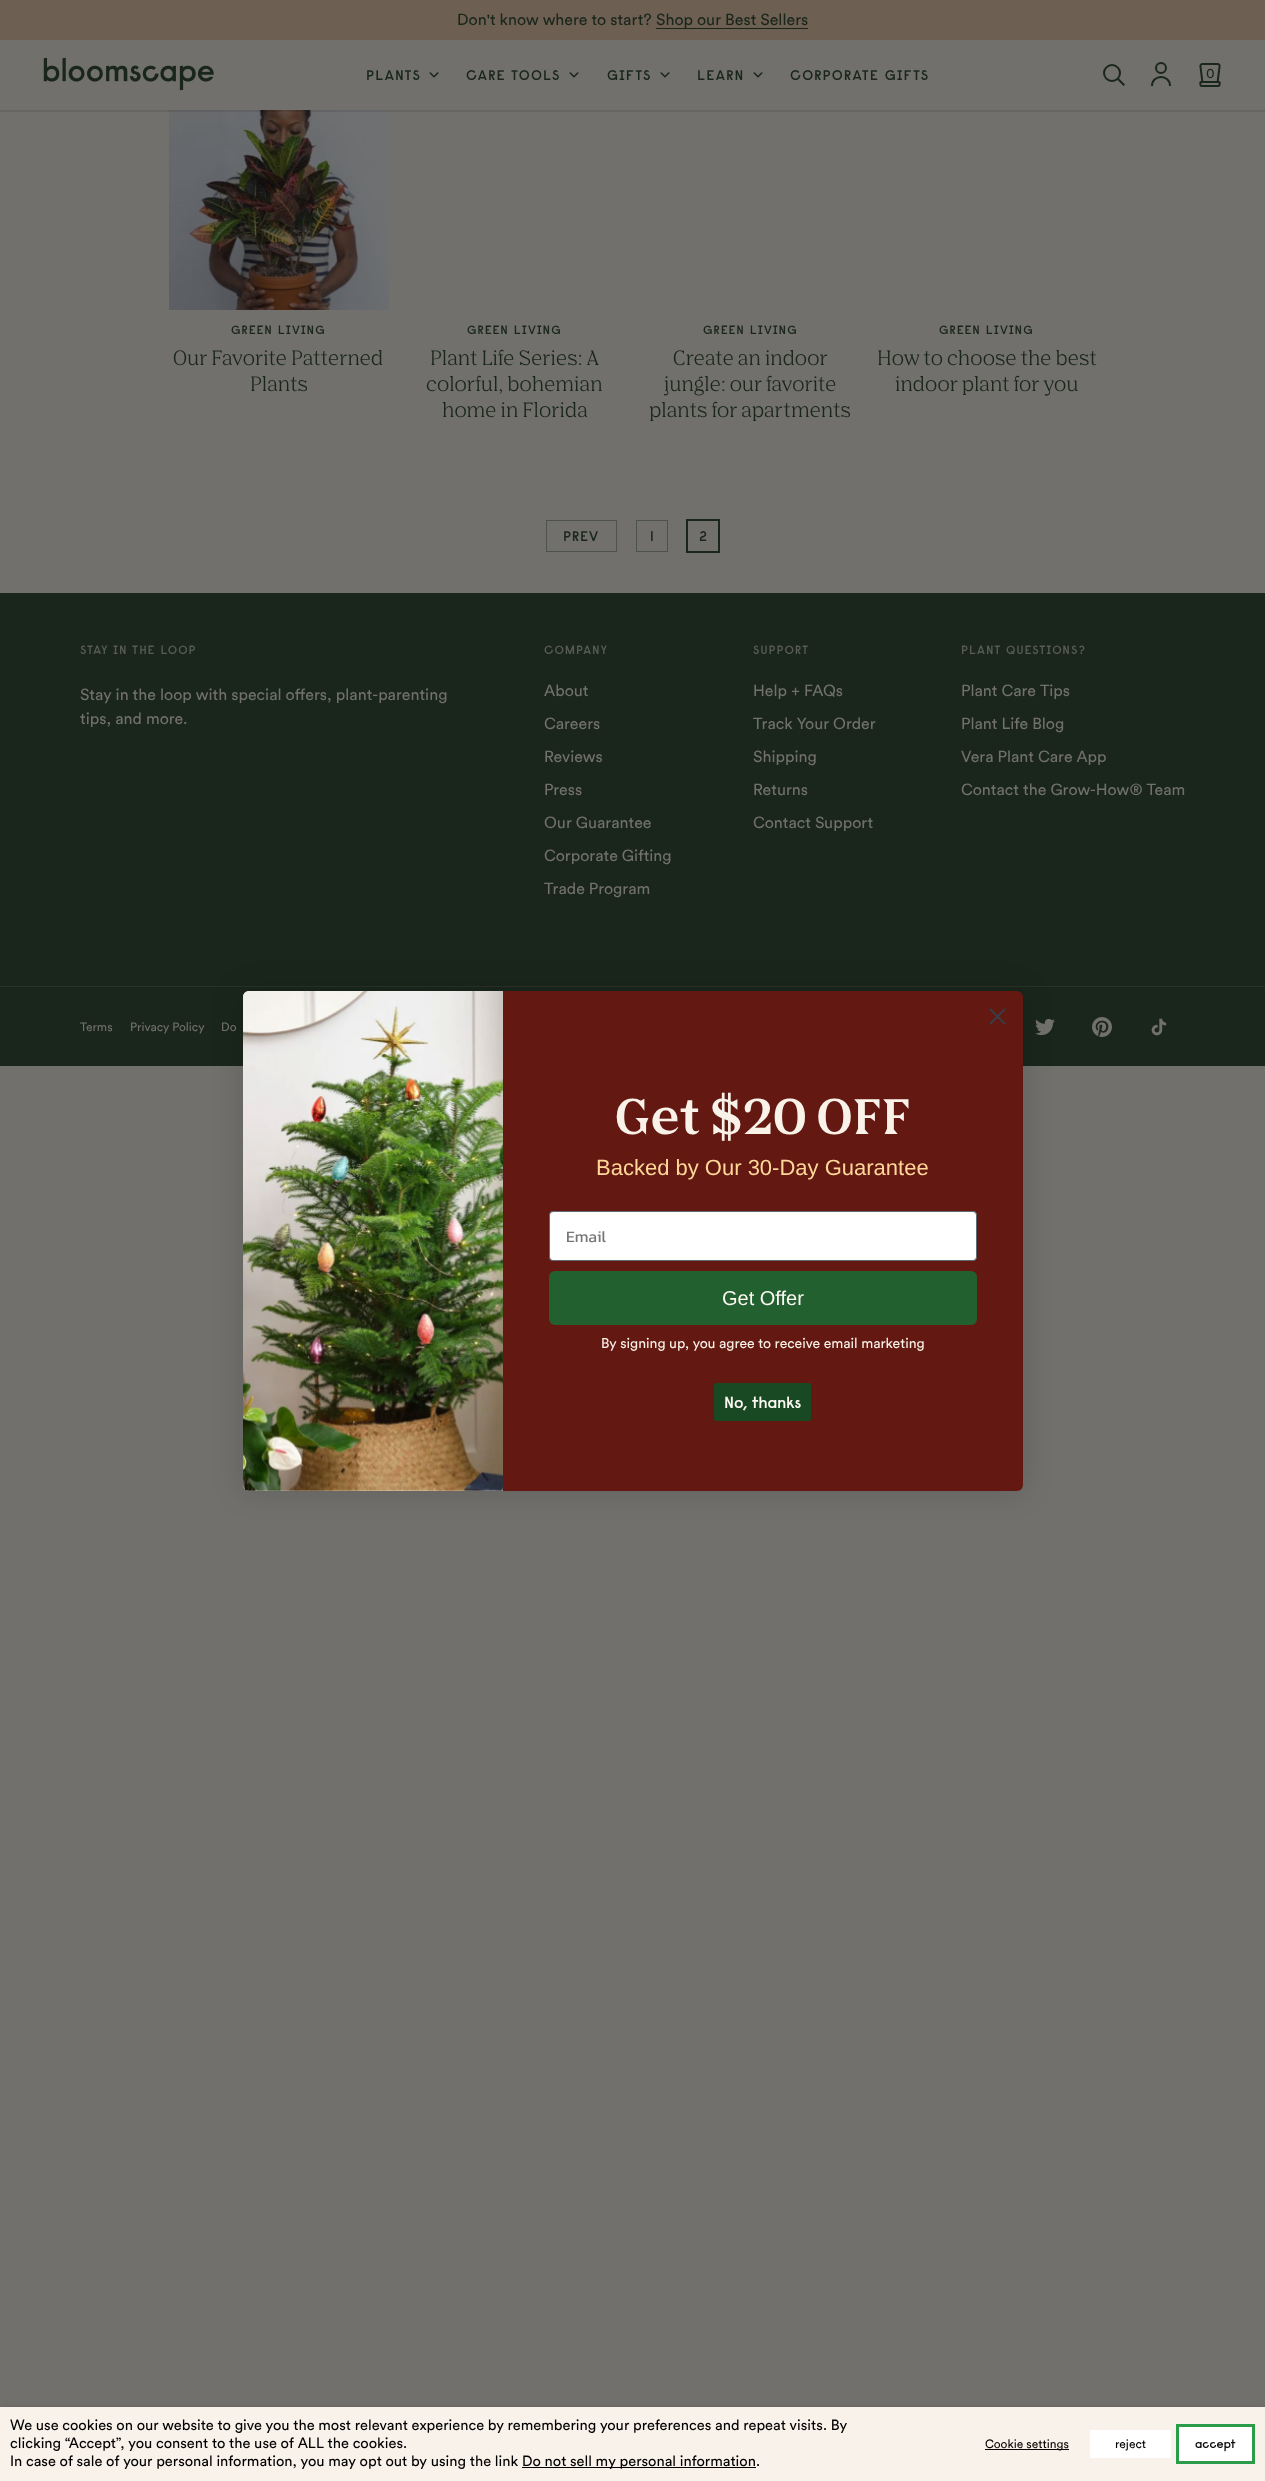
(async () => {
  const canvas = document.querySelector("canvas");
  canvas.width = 1265;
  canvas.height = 2481;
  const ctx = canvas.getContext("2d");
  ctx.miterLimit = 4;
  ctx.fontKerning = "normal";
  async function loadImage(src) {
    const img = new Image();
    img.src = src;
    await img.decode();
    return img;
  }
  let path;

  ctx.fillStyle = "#71706d";
  ctx.fillRect(0, 0, 1265, 2481);
  ctx.fillStyle = "#6e5f53";
  ctx.fillRect(0, 0, 1265, 40);
  ctx.fillStyle = "#1a261c";
  ctx.fillRect(656, 28, 152, 1);
  ctx.drawImage(await loadImage("img/4.png"), 169, 110, 220, 200);
  ctx.fillStyle = "rgba(12, 12, 12, 0.1)";
  ctx.fillRect(0, 110, 1265, 2);
  ctx.drawImage(await loadImage("img/1.png"), 43, 57, 171, 34);
  ctx.drawImage(await loadImage("img/2.png"), 429, 72, 10, 6);
  ctx.drawImage(await loadImage("img/2.png"), 569, 72, 10, 6);
  ctx.drawImage(await loadImage("img/2.png"), 660, 72, 10, 6);
  ctx.drawImage(await loadImage("img/2.png"), 753, 72, 10, 6);
  ctx.beginPath();
  ctx.arc(1112, 73, 8, 0, Math.PI * 2);
  ctx.strokeStyle = "#1a261c";
  ctx.lineWidth = 2;
  ctx.stroke();
  ctx.fillStyle = "#1a261c";
  path = new Path2D("M1117 79.5L1118.5 78L1125 84.5L1123.5 86Z");
  ctx.fill(path);
  ctx.beginPath();
  ctx.arc(1161, 68, 5, 0, Math.PI * 2);
  ctx.stroke();
  path = new Path2D("M1170 86C1170 74 1152 74 1152 86");
  ctx.stroke(path);
  ctx.drawImage(await loadImage("img/3.png"), 1199, 63, 22, 24);
  ctx.strokeStyle = "#4e524d";
  ctx.lineWidth = 1;
  ctx.strokeRect(546.5, 520.5, 70, 31);
  ctx.strokeRect(636.5, 520.5, 31, 31);
  ctx.strokeStyle = "#1a261c";
  ctx.strokeRect(686.5, 519.5, 33, 33);
  ctx.strokeRect(687.5, 520.5, 31, 31);
  ctx.fillRect(0, 593, 1265, 473);
  ctx.fillStyle = "#283229";
  ctx.fillRect(0, 986, 1265, 1);
  ctx.drawImage(await loadImage("img/5.png"), 1035, 1018, 20, 18);
  ctx.drawImage(await loadImage("img/6.png"), 1092, 1017, 20, 20);
  ctx.drawImage(await loadImage("img/7.png"), 1151, 1018, 16, 18);
  ctx.fillStyle = "rgba(0, 0, 0, 0.15)";
  ctx.filter = "blur(15px)";
  ctx.beginPath();
  ctx.roundRect(243, 991, 780, 500, 6);
  ctx.fill();
  ctx.filter = "none";
  ctx.fillStyle = "#631911";
  ctx.beginPath();
  ctx.roundRect(243, 991, 780, 500, 6);
  ctx.fill();
  path = new Path2D("M990.5 1009.5L1004.5 1023.5M990.5 1023.5L1004.5 1009.5Z");
  ctx.strokeStyle = "#373f47";
  ctx.lineWidth = 1.8;
  ctx.lineCap = "round";
  ctx.lineJoin = "round";
  ctx.stroke(path);
  ctx.fillStyle = "#f9f2e8";
  ctx.beginPath();
  ctx.roundRect(243, 991, 260, 500, [6, 0, 0, 6]);
  ctx.fill();
  ctx.drawImage(await loadImage("img/8.png"), 243, 991, 260, 500);
  ctx.fillStyle = "#ffffff";
  ctx.beginPath();
  ctx.roundRect(549.5, 1211.5, 427, 49, 3.5);
  ctx.fill();
  ctx.strokeStyle = "#606a72";
  ctx.lineWidth = 1;
  ctx.lineJoin = "miter";
  ctx.stroke();
  ctx.fillStyle = "#236030";
  ctx.beginPath();
  ctx.roundRect(549, 1271, 428, 54, 6);
  ctx.fill();
  ctx.fillStyle = "#184923";
  ctx.beginPath();
  ctx.roundRect(714, 1383, 97, 38, 2);
  ctx.fill();
  ctx.fillStyle = "rgba(0, 0, 0, 0.5)";
  ctx.filter = "blur(5px)";
  ctx.beginPath();
  ctx.rect(0, 2412, 1265, 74);
  ctx.fill();
  ctx.filter = "none";
  for (const [x, y, w, h, color] of [
    [0, 2407, 1265, 74, "#f9f2ea"],
    [522, 2467, 234, 1, "#000000"],
    [985, 2449, 84, 1, "#0a0202"],
    [1090, 2430, 81, 28, "#ffffff"],
  ]) {
    ctx.fillStyle = color;
    ctx.fillRect(x, y, w, h);
  }
  ctx.beginPath();
  ctx.rect(1177.5, 2425.5, 76, 37);
  ctx.fill();
  ctx.strokeStyle = "#2b9c49";
  ctx.lineWidth = 3;
  ctx.stroke();
  ctx.font = "16px Circular";
  ctx.fillStyle = "#1a261c";
  ctx.fillText("Don't know where to start?", 457, 25);
  ctx.fillText("Shop our Best Sellers", 656, 25);
  ctx.letterSpacing = "1.4px";
  ctx.font = "600 14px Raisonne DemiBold";
  for (const [text, x, y] of [
    ["PLANTS", 366, 80],
    ["CARE TOOLS", 466, 80],
    ["GIFTS", 607, 80],
    ["LEARN", 697, 80],
    ["CORPORATE GIFTS", 790, 80],
  ]) {
    ctx.fillText(text, x, y);
  }
  ctx.letterSpacing = "0px";
  ctx.font = "14px Circular";
  ctx.fillText("0", 1206, 78);
  ctx.letterSpacing = "1.25px";
  ctx.font = "600 12px Raisonne DemiBold";
  ctx.fillText("GREEN LIVING", 231, 334);
  ctx.letterSpacing = "0px";
  ctx.font = "20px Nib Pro";
  ctx.fillText("Our Favorite Patterned", 173, 365);
  ctx.fillText("Plants", 250, 391);
  ctx.letterSpacing = "1.25px";
  ctx.font = "600 12px Raisonne DemiBold";
  ctx.fillText("GREEN LIVING", 467, 334);
  ctx.letterSpacing = "0px";
  ctx.font = "20px Nib Pro";
  for (const [text, x, y] of [
    ["Plant Life Series: A", 430, 365],
    ["colorful, bohemian", 426, 391],
    ["home in Florida", 442, 417],
  ]) {
    ctx.fillText(text, x, y);
  }
  ctx.letterSpacing = "1.25px";
  ctx.font = "600 12px Raisonne DemiBold";
  ctx.fillText("GREEN LIVING", 703, 334);
  ctx.letterSpacing = "0px";
  ctx.font = "20px Nib Pro";
  for (const [text, x, y] of [
    ["Create an indoor", 673, 365],
    ["jungle: our favorite", 664, 391],
    ["plants for apartments", 649, 417],
  ]) {
    ctx.fillText(text, x, y);
  }
  ctx.letterSpacing = "1.25px";
  ctx.font = "600 12px Raisonne DemiBold";
  ctx.fillText("GREEN LIVING", 939, 334);
  ctx.letterSpacing = "0px";
  ctx.font = "20px Nib Pro";
  ctx.fillText("How to choose the best", 877, 365);
  ctx.fillText("indoor plant for you", 895, 391);
  ctx.letterSpacing = "1px";
  ctx.font = "600 14px Raisonne DemiBold";
  ctx.fillText("PREV", 563, 541);
  ctx.letterSpacing = "0px";
  ctx.fillText("1", 650, 541);
  ctx.fillText("2", 699, 541);
  ctx.letterSpacing = "1.25px";
  ctx.font = "600 12px Raisonne DemiBold";
  ctx.fillStyle = "#585b56";
  ctx.fillText("STAY IN THE LOOP", 80, 654);
  ctx.letterSpacing = "0px";
  ctx.font = "16px Circular";
  ctx.fillStyle = "#71706d";
  ctx.fillText("Stay in the loop with special offers, plant-parenting", 80, 700);
  ctx.fillText("tips, and more.", 80, 724);
  ctx.letterSpacing = "1.25px";
  ctx.font = "600 12px Raisonne DemiBold";
  ctx.fillStyle = "#585b56";
  ctx.fillText("COMPANY", 544, 654);
  ctx.letterSpacing = "0px";
  ctx.font = "16px Circular";
  ctx.fillStyle = "#71706d";
  for (const [text, x, y] of [
    ["About", 544, 696],
    ["Careers", 544, 729],
    ["Reviews", 544, 762],
    ["Press", 544, 795],
    ["Our Guarantee", 544, 828],
    ["Corporate Gifting", 544, 861],
    ["Trade Program", 544, 894],
  ]) {
    ctx.fillText(text, x, y);
  }
  ctx.letterSpacing = "1.25px";
  ctx.font = "600 12px Raisonne DemiBold";
  ctx.fillStyle = "#585b56";
  ctx.fillText("SUPPORT", 753, 654);
  ctx.letterSpacing = "0px";
  ctx.font = "16px Circular";
  ctx.fillStyle = "#71706d";
  for (const [text, x, y] of [
    ["Help + FAQs", 753, 696],
    ["Track Your Order", 753, 729],
    ["Shipping", 753, 762],
    ["Returns", 753, 795],
    ["Contact Support", 753, 828],
  ]) {
    ctx.fillText(text, x, y);
  }
  ctx.letterSpacing = "1.25px";
  ctx.font = "600 12px Raisonne DemiBold";
  ctx.fillStyle = "#585b56";
  ctx.fillText("PLANT QUESTIONS?", 961, 654);
  ctx.letterSpacing = "0px";
  ctx.font = "16px Circular";
  ctx.fillStyle = "#71706d";
  for (const [text, x, y] of [
    ["Plant Care Tips", 961, 696],
    ["Plant Life Blog", 961, 729],
    ["Vera Plant Care App", 961, 762],
    ["Contact the Grow-How® Team", 961, 795],
  ]) {
    ctx.fillText(text, x, y);
  }
  ctx.font = "12px Circular";
  for (const [text, x, y] of [
    ["Terms", 80, 1031],
    ["Privacy Policy", 130, 1031],
    ["Do", 221, 1031],
  ]) {
    ctx.fillText(text, x, y);
  }
  ctx.font = "bold 48px Nib Pro";
  ctx.fillStyle = "#f9f2e8";
  ctx.fillText("Get $20 OFF", 614, 1134);
  ctx.font = "22px Liberation Sans";
  ctx.fillStyle = "#ffd89a";
  ctx.fillText("Backed by Our 30-Day Guarantee", 596, 1175);
  ctx.font = "16px Kanit";
  ctx.fillStyle = "#767676";
  ctx.fillText("Email", 566, 1242);
  ctx.font = "20px Liberation Sans";
  ctx.fillStyle = "#fdf9f3";
  ctx.fillText("Get Offer", 722, 1305);
  ctx.font = "14px Circular";
  ctx.fillStyle = "#f9f2e8";
  ctx.fillText("By signing up, you agree to receive email marketing", 601, 1348);
  ctx.font = "600 16px 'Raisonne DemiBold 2'";
  ctx.fillStyle = "#fdf9f3";
  ctx.fillText("No, thanks", 724, 1408);
  ctx.font = "14.67px Circular";
  ctx.fillStyle = "#000000";
  for (const [text, x, y] of [
    ["We use cookies on our website to give you the most relevant experience by remembering your preferences and repeat visits. By", 10, 2430],
    ["clicking “Accept”, you consent to the use of ALL the cookies.", 10, 2448],
    ["In case of sale of your personal information, you may opt out by using the link", 10, 2466],
    ["Do not sell my personal information.", 522, 2466],
  ]) {
    ctx.fillText(text, x, y);
  }
  ctx.font = "12px Circular";
  ctx.fillStyle = "#0a0202";
  ctx.fillText("Cookie settings", 985, 2448);
  ctx.fillStyle = "#000000";
  ctx.fillText("reject", 1115, 2448);
  ctx.font = "600 12px Raisonne DemiBold";
  ctx.fillStyle = "#0a0a0a";
  ctx.fillText("accept", 1195, 2448);
})();
